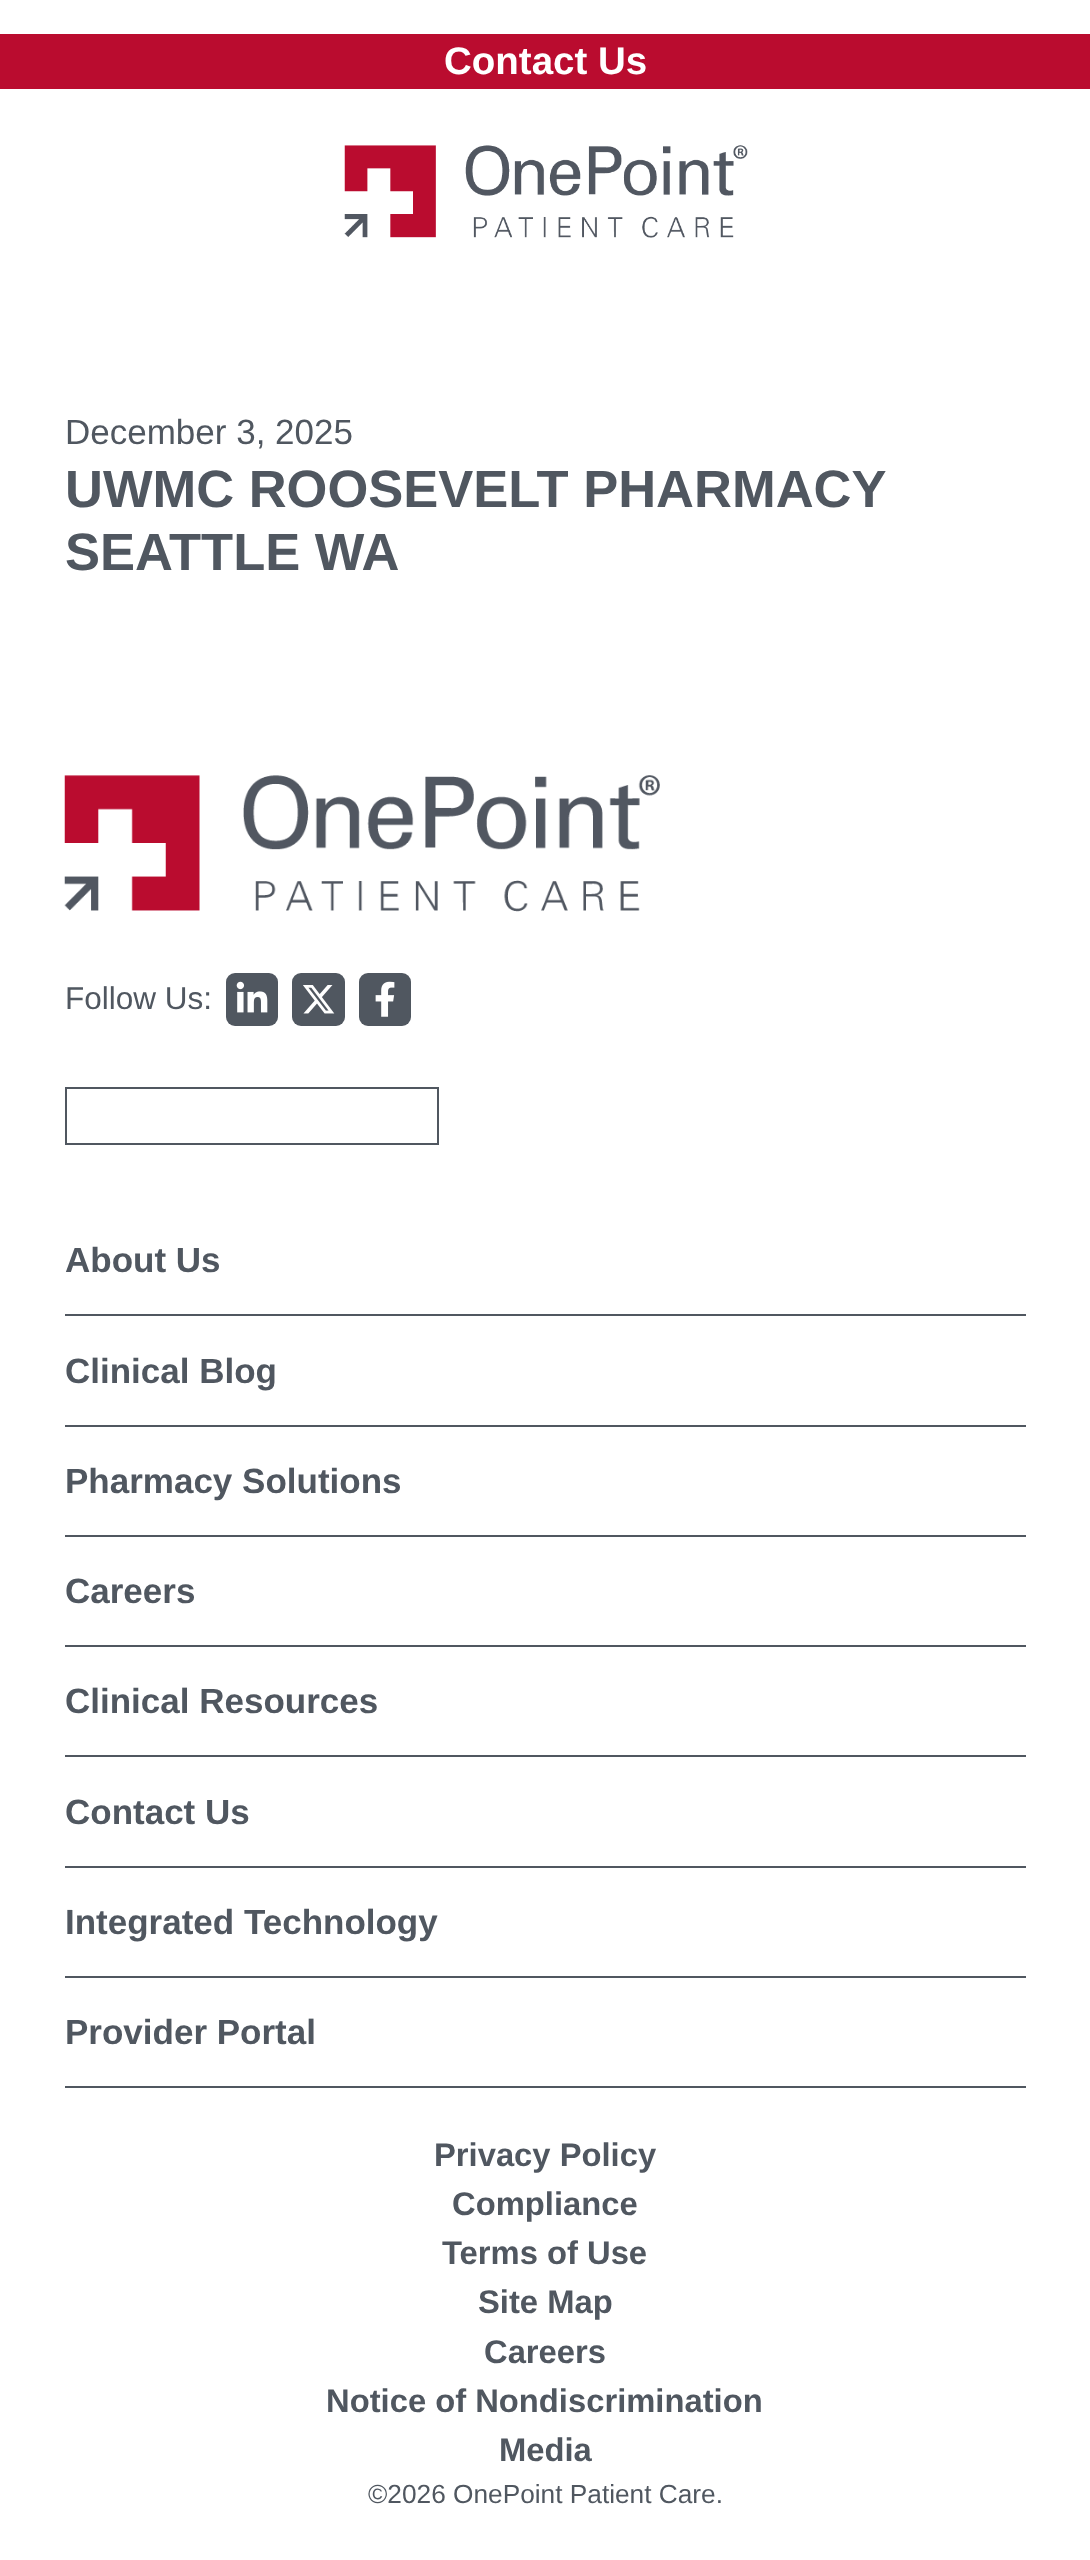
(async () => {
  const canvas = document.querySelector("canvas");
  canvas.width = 1090;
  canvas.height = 2560;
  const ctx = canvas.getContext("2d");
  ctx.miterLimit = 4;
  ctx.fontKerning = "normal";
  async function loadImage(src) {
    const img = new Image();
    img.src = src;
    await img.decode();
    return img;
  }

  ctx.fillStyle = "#ffffff";
  ctx.fillRect(0, 0, 1090, 2560);
  ctx.fillStyle = "#ba0c2f";
  ctx.fillRect(0, 34, 1090, 55);
  ctx.drawImage(await loadImage("img/1.png"), 344, 145, 404, 93);
  ctx.drawImage(await loadImage("img/2.png"), 64, 775, 596, 137);
  ctx.fillStyle = "#505760";
  ctx.beginPath();
  ctx.roundRect(226, 973, 52, 53, 9);
  ctx.fill();
  ctx.drawImage(await loadImage("img/3.png"), 236, 981, 32, 32);
  ctx.beginPath();
  ctx.roundRect(292, 973, 53, 53, 9);
  ctx.fill();
  ctx.drawImage(await loadImage("img/4.png"), 303, 985, 32, 29);
  ctx.beginPath();
  ctx.roundRect(359, 973, 52, 53, 9);
  ctx.fill();
  ctx.drawImage(await loadImage("img/5.png"), 375, 981, 20, 36);
  ctx.strokeStyle = "#505760";
  ctx.lineWidth = 2;
  ctx.strokeRect(66, 1088, 372, 56);
  for (const [x, y, w, h, color] of [
    [65, 1314, 961, 2, "#505760"],
    [65, 1425, 961, 2, "#505760"],
    [65, 1535, 961, 2, "#505760"],
    [65, 1645, 961, 2, "#505760"],
    [65, 1755, 961, 2, "#505760"],
    [65, 1866, 961, 2, "#505760"],
    [65, 1976, 961, 2, "#505760"],
    [65, 2086, 961, 2, "#505760"],
  ]) {
    ctx.fillStyle = color;
    ctx.fillRect(x, y, w, h);
  }
  ctx.font = "bold 38.5px Liberation Sans";
  ctx.fillStyle = "#ffffff";
  ctx.fillText("Contact Us", 444, 74);
  ctx.font = "35px Liberation Sans";
  ctx.fillStyle = "#505760";
  ctx.fillText("December 3, 2025", 65, 444);
  ctx.font = "bold 52.5px Liberation Sans";
  ctx.fillText("UWMC ROOSEVELT PHARMACY", 65, 507);
  ctx.fillText("SEATTLE WA", 65, 570);
  ctx.font = "31.5px Liberation Sans";
  ctx.fillText("Follow Us:", 65, 1009);
  ctx.font = "bold 35px Liberation Sans";
  for (const [text, x, y] of [
    ["About Us", 65, 1272],
    ["Clinical Blog", 65, 1383],
    ["Pharmacy Solutions", 65, 1493],
    ["Careers", 65, 1603],
    ["Clinical Resources", 65, 1713],
    ["Contact Us", 65, 1824],
    ["Integrated Technology", 65, 1934],
    ["Provider Portal", 65, 2044],
  ]) {
    ctx.fillText(text, x, y);
  }
  ctx.font = "bold 32.75px Liberation Sans";
  for (const [text, x, y] of [
    ["Privacy Policy", 434, 2166],
    ["Compliance", 452, 2215],
    ["Terms of Use", 442, 2264],
    ["Site Map", 478, 2313],
    ["Careers", 484, 2363],
    ["Notice of Nondiscrimination", 326, 2412],
    ["Media", 499, 2461],
  ]) {
    ctx.fillText(text, x, y);
  }
  ctx.font = "26.25px Liberation Sans";
  ctx.fillText("©2026 OnePoint Patient Care.", 368, 2503);
})();
